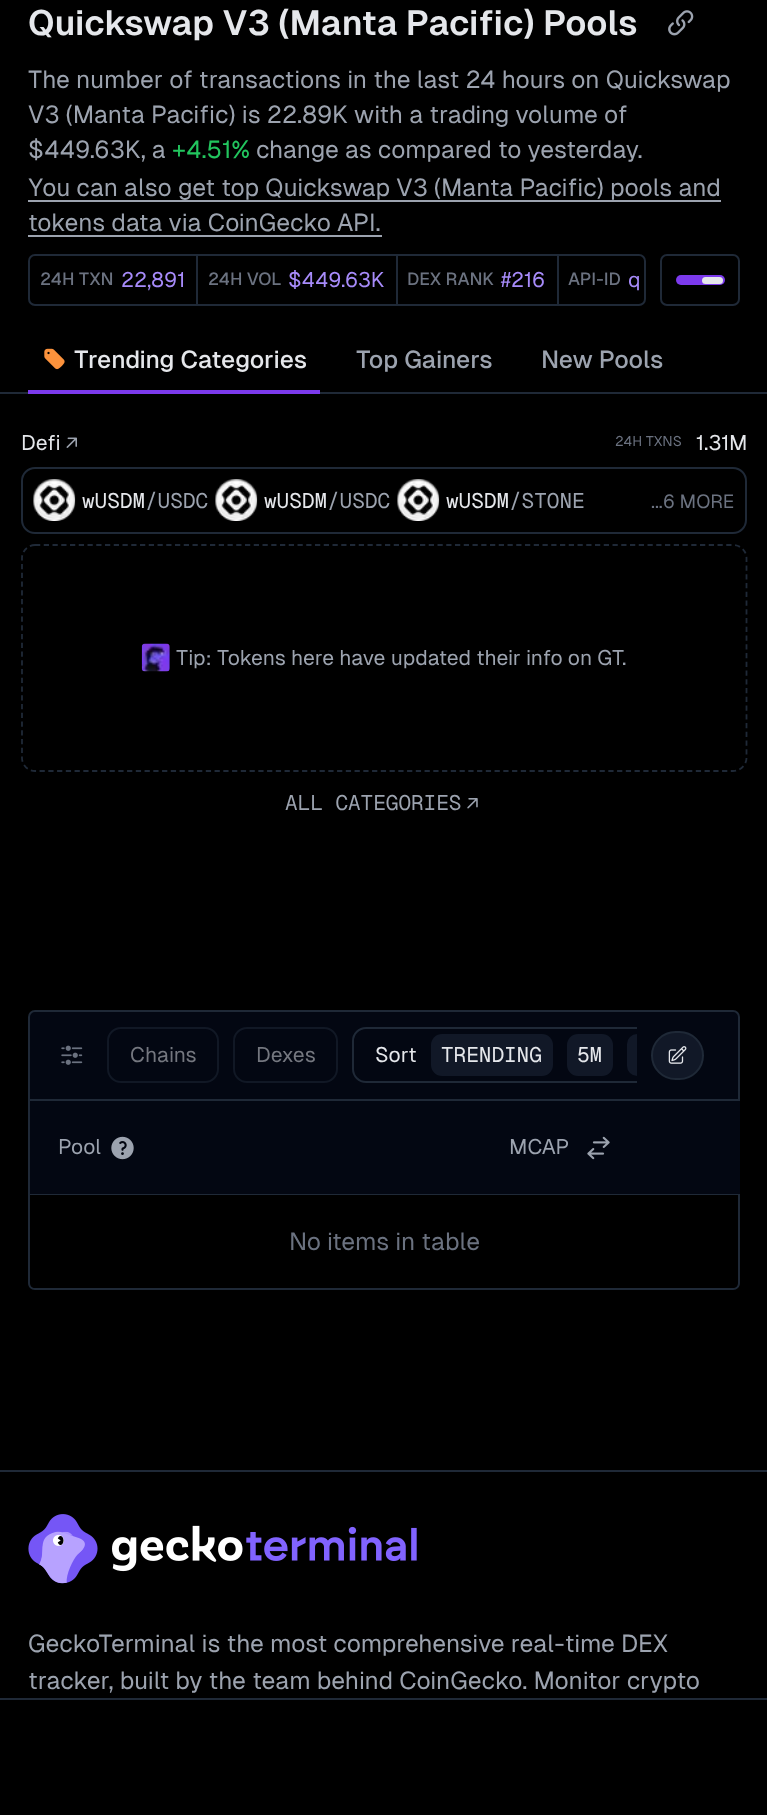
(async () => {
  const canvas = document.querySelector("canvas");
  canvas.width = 767;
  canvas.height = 1815;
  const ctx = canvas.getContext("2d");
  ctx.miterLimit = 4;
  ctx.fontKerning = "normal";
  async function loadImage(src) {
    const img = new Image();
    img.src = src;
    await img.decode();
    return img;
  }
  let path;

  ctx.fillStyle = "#000000";
  ctx.fillRect(0, 0, 767, 1815);
  ctx.drawImage(await loadImage("img/1.png"), 668, 10, 26, 26);
  ctx.fillStyle = "#9ca3af";
  ctx.fillRect(28, 200, 693, 2);
  ctx.fillRect(28, 235, 354, 2);
  ctx.beginPath();
  ctx.roundRect(29, 255, 616, 50, 6);
  ctx.strokeStyle = "#1f2937";
  ctx.lineWidth = 2;
  ctx.stroke();
  for (const [x, y, w, h, color] of [
    [196, 256, 2, 49, "#1f2937"],
    [396, 256, 2, 49, "#1f2937"],
    [557, 256, 2, 49, "#1f2937"],
  ]) {
    ctx.fillStyle = color;
    ctx.fillRect(x, y, w, h);
  }
  ctx.beginPath();
  ctx.roundRect(661, 255, 78, 50, 6);
  ctx.stroke();
  ctx.fillStyle = "#7c3aed";
  ctx.beginPath();
  ctx.roundRect(676, 275, 49, 10, 5);
  ctx.fill();
  ctx.fillStyle = "#e5e7eb";
  ctx.beginPath();
  ctx.roundRect(702, 277, 21, 7, 3.5);
  ctx.fill();
  ctx.drawImage(await loadImage("img/2.png"), 44, 348, 21, 22);
  ctx.fillStyle = "#1f2937";
  ctx.fillRect(0, 392, 767, 2);
  ctx.fillStyle = "#7c3aed";
  ctx.fillRect(28, 390, 292, 4);
  ctx.drawImage(await loadImage("img/3.png"), 66, 437, 11, 11);
  ctx.beginPath();
  ctx.roundRect(22, 468, 724, 65, 13);
  ctx.stroke();
  ctx.drawImage(await loadImage("img/4.png"), 33, 479, 43, 42);
  ctx.drawImage(await loadImage("img/5.png"), 215, 479, 43, 42);
  ctx.drawImage(await loadImage("img/6.png"), 397, 479, 43, 42);
  path = new Path2D("M35 545H733C740.5 545 746.5 551 746.5 558V758C746.5 765 740.5 771 733 771H35C28 771 22 765 22 758V558C22 551 28 545 35 545Z");
  ctx.lineWidth = 1.8;
  ctx.setLineDash([5.25, 3.5]);
  ctx.stroke(path);
  ctx.drawImage(await loadImage("img/7.png"), 141, 643, 29, 29);
  ctx.drawImage(await loadImage("img/8.png"), 467, 798, 11, 11);
  ctx.fillStyle = "#030712";
  ctx.beginPath();
  ctx.roundRect(29, 1011, 710, 89, [6, 6, 0, 0]);
  ctx.fill();
  ctx.lineWidth = 2;
  ctx.setLineDash([]);
  ctx.stroke();
  ctx.drawImage(await loadImage("img/9.png"), 61, 1045, 22, 20);
  ctx.beginPath();
  ctx.roundRect(108, 1028, 110, 54, 13);
  ctx.strokeStyle = "#111825";
  ctx.stroke();
  ctx.beginPath();
  ctx.roundRect(234, 1028, 103, 54, 13);
  ctx.stroke();
  ctx.save();
  ctx.beginPath();
  ctx.rect(107, 1027, 530, 56);
  ctx.clip();
  ctx.beginPath();
  ctx.roundRect(353, 1028, 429, 54, 13);
  ctx.strokeStyle = "#1f2937";
  ctx.stroke();
  ctx.restore();
  ctx.fillStyle = "#111827";
  ctx.beginPath();
  ctx.roundRect(431, 1034, 122, 42, 11);
  ctx.fill();
  ctx.beginPath();
  ctx.roundRect(567, 1034, 46, 42, 11);
  ctx.fill();
  ctx.beginPath();
  ctx.roundRect(627, 1034, 10, 42, [11, 0, 0, 11]);
  ctx.fill();
  ctx.beginPath();
  ctx.roundRect(652, 1032, 51, 47, 23.5);
  ctx.fill();
  ctx.strokeStyle = "#1f2937";
  ctx.stroke();
  ctx.drawImage(await loadImage("img/10.png"), 668, 1046, 19, 18);
  for (const [x, y, w, h, color] of [
    [28, 1194, 712, 1, "#1f2937"],
    [28, 1101, 2, 94, "#1f2937"],
    [30, 1101, 710, 93, "#030712"],
  ]) {
    ctx.fillStyle = color;
    ctx.fillRect(x, y, w, h);
  }
  ctx.drawImage(await loadImage("img/11.png"), 111, 1136, 23, 24);
  ctx.drawImage(await loadImage("img/12.png"), 587, 1136, 23, 24);
  ctx.fillStyle = "#1f2937";
  path = new Path2D("M28 1195H740V1283C740 1287 737 1290 733 1290H35C31 1290 28 1287 28 1283ZM30 1195H738V1283C738 1286 736 1288 733 1288H35C32 1288 30 1286 30 1283Z");
  ctx.fill(path, "evenodd");
  ctx.fillRect(0, 1470, 767, 2);
  ctx.drawImage(await loadImage("img/13.png"), 28, 1514, 70, 70);
  ctx.drawImage(await loadImage("img/14.png"), 112, 1525, 305, 47);
  ctx.fillRect(0, 1698, 767, 2);
  ctx.font = "600 35px Geist";
  ctx.fillStyle = "#e5e7eb";
  ctx.fillText("Quickswap V3 (Manta Pacific) Pools", 28, 35);
  ctx.font = "24.5px Geist";
  ctx.fillStyle = "#9ca3af";
  for (const [text, x, y] of [
    ["The number of transactions in the last 24 hours on Quickswap", 28, 88],
    ["V3 (Manta Pacific) is 22.89K with a trading volume of", 28, 123],
    ["$449.63K, a", 28, 158],
  ]) {
    ctx.fillText(text, x, y);
  }
  ctx.fillStyle = "#22c55e";
  ctx.fillText("+4.51%", 172, 158);
  ctx.fillStyle = "#9ca3af";
  for (const [text, x, y] of [
    ["change as compared to yesterday.", 256, 158],
    ["You can also get top Quickswap V3 (Manta Pacific) pools and", 28, 196],
    ["tokens data via CoinGecko API.", 28, 231],
  ]) {
    ctx.fillText(text, x, y);
  }
  ctx.font = "500 17.5px Geist";
  ctx.fillStyle = "#6b7280";
  ctx.fillText("24H TXN", 40, 285);
  ctx.font = "21px Geist";
  ctx.fillStyle = "#a78bfa";
  ctx.fillText("22,891", 121, 287);
  ctx.font = "500 17.5px Geist";
  ctx.fillStyle = "#6b7280";
  ctx.fillText("24H VOL", 208, 285);
  ctx.font = "21px Geist";
  ctx.fillStyle = "#a78bfa";
  ctx.fillText("$449.63K", 288, 287);
  ctx.font = "500 17.5px Geist";
  ctx.fillStyle = "#6b7280";
  ctx.fillText("DEX RANK", 407, 285);
  ctx.font = "21px Geist";
  ctx.fillStyle = "#a78bfa";
  ctx.fillText("#216", 501, 287);
  ctx.font = "500 17.5px Geist";
  ctx.fillStyle = "#6b7280";
  ctx.fillText("API-ID", 568, 285);
  ctx.font = "21px Geist";
  ctx.fillStyle = "#a78bfa";
  ctx.fillText("q", 628, 287);
  ctx.font = "500 24.5px Geist";
  ctx.fillStyle = "#e5e7eb";
  ctx.fillText("Trending Categories", 74, 368);
  ctx.fillStyle = "#9ca3af";
  ctx.fillText("Top Gainers", 356, 368);
  ctx.fillText("New Pools", 541, 368);
  ctx.font = "21px Geist";
  ctx.fillStyle = "#e5e7eb";
  ctx.fillText("Defi", 21, 450);
  ctx.font = "14px Geist";
  ctx.fillStyle = "#6b7280";
  ctx.fillText("24H TXNS", 615, 446);
  ctx.font = "21px Geist";
  ctx.fillStyle = "#e5e7eb";
  ctx.fillText("1.31M", 696, 450);
  ctx.font = "21px Geist Mono";
  ctx.fillText("wUSDM", 82, 508);
  ctx.fillStyle = "#9ca3af";
  ctx.fillText("/USDC", 145, 508);
  ctx.fillStyle = "#e5e7eb";
  ctx.fillText("wUSDM", 264, 508);
  ctx.fillStyle = "#9ca3af";
  ctx.fillText("/USDC", 327, 508);
  ctx.fillStyle = "#e5e7eb";
  ctx.fillText("wUSDM", 446, 508);
  ctx.fillStyle = "#9ca3af";
  ctx.fillText("/STONE", 509, 508);
  ctx.font = "19px Geist";
  ctx.fillStyle = "#6b7280";
  ctx.fillText("...", 651, 508);
  ctx.fillText("6 MORE", 663, 508);
  ctx.font = "21px Geist";
  ctx.fillStyle = "#9ca3af";
  ctx.fillText("Tip: Tokens here have updated their info on GT.", 176, 665);
  ctx.font = "21px Geist Mono";
  ctx.fillText("ALL CATEGORIES", 285, 810);
  ctx.font = "21px Geist";
  ctx.fillStyle = "#74777f";
  ctx.fillText("Chains", 130, 1062);
  ctx.fillText("Dexes", 256, 1062);
  ctx.fillStyle = "#e5e7eb";
  ctx.fillText("Sort", 375, 1062);
  ctx.font = "21px Geist Mono";
  ctx.fillText("TRENDING", 441, 1062);
  ctx.fillText("5M", 577, 1062);
  ctx.font = "21px Geist";
  ctx.fillStyle = "#9ca3af";
  ctx.fillText("Pool", 58, 1154);
  ctx.fillText("MCAP", 509, 1154);
  ctx.font = "24.5px Geist";
  ctx.fillStyle = "#6b7280";
  ctx.fillText("No items in table", 289, 1250);
  ctx.fillStyle = "#9ca3af";
  ctx.fillText("GeckoTerminal is the most comprehensive real-time DEX", 28, 1652);
  ctx.fillText("tracker, built by the team behind CoinGecko. Monitor crypto", 28, 1689);
})();
